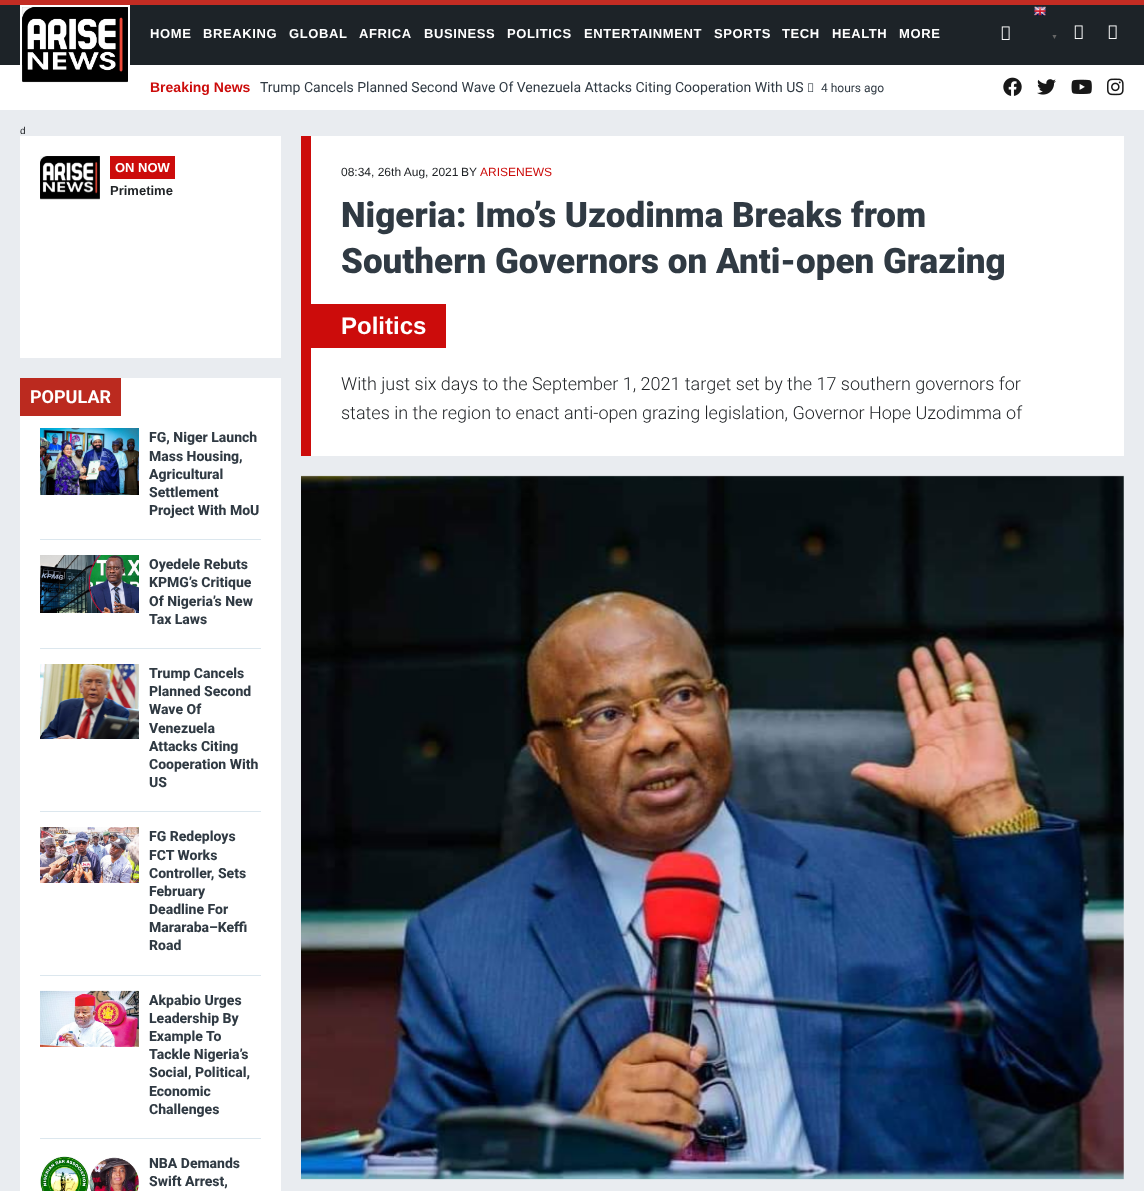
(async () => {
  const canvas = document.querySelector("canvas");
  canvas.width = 1144;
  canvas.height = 1191;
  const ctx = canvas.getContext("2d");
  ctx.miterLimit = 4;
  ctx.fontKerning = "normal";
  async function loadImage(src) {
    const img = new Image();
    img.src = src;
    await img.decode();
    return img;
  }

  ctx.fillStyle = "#e9ecf0";
  ctx.fillRect(0, 0, 1144, 1191);
  for (const [x, y, w, h, color] of [
    [0, 0, 1144, 5, "#c32c23"],
    [0, 5, 1144, 60, "#1d2328"],
    [0, 65, 1144, 45, "#ffffff"],
  ]) {
    ctx.fillStyle = color;
    ctx.fillRect(x, y, w, h);
  }
  ctx.drawImage(await loadImage("img/1.png"), 22, 7, 106, 76);
  ctx.strokeStyle = "#ffffff";
  ctx.lineWidth = 2;
  ctx.strokeRect(21, 6, 108, 87);
  ctx.drawImage(await loadImage("img/2.png"), 1001, 26, 9, 14);
  ctx.drawImage(await loadImage("img/3.png"), 1034, 6, 12, 10);
  ctx.drawImage(await loadImage("img/2.png"), 1074, 25, 9, 14);
  ctx.drawImage(await loadImage("img/2.png"), 1108, 25, 9, 14);
  ctx.drawImage(await loadImage("img/4.png"), 808, 83, 6, 9);
  ctx.drawImage(await loadImage("img/5.png"), 1003, 77, 19, 19);
  ctx.drawImage(await loadImage("img/6.png"), 1037, 79, 19, 16);
  ctx.drawImage(await loadImage("img/7.png"), 1071, 79, 21, 15);
  ctx.drawImage(await loadImage("img/8.png"), 1107, 78, 17, 18);
  ctx.fillRect(20, 136, 261, 222);
  ctx.drawImage(await loadImage("img/9.png"), 40, 156, 60, 44);
  for (const [x, y, w, h, color] of [
    [110, 156, 65, 23, "#cc0c0b"],
    [20, 378, 261, 813, "#ffffff"],
    [20, 378, 101, 38, "#bb2a1f"],
    [40, 539, 221, 1, "#dce7ee"],
  ]) {
    ctx.fillStyle = color;
    ctx.fillRect(x, y, w, h);
  }
  ctx.drawImage(await loadImage("img/10.png"), 40, 428, 99, 67);
  ctx.fillRect(40, 648, 221, 1);
  ctx.drawImage(await loadImage("img/11.png"), 40, 555, 99, 58);
  ctx.fillRect(40, 811, 221, 1);
  ctx.drawImage(await loadImage("img/12.png"), 40, 664, 99, 75);
  ctx.fillRect(40, 975, 221, 1);
  ctx.drawImage(await loadImage("img/13.png"), 40, 827, 99, 56);
  ctx.fillRect(40, 1138, 221, 1);
  ctx.drawImage(await loadImage("img/14.png"), 40, 990, 99, 57);
  ctx.drawImage(await loadImage("img/15.png"), 40, 1156, 99, 35);
  for (const [x, y, w, h, color] of [
    [311, 136, 813, 320, "#ffffff"],
    [301, 136, 10, 320, "#cc0c0b"],
    [311, 304, 135, 44, "#cc0c0b"],
  ]) {
    ctx.fillStyle = color;
    ctx.fillRect(x, y, w, h);
  }
  ctx.drawImage(await loadImage("img/16.png"), 301, 475, 823, 705);
  ctx.letterSpacing = "0.6px";
  ctx.font = "bold 13px Liberation Sans";
  ctx.fillStyle = "#ffffff";
  for (const [text, x, y] of [
    ["HOME", 150, 38],
    ["BREAKING", 203, 38],
    ["GLOBAL", 289, 38],
    ["AFRICA", 359, 38],
    ["BUSINESS", 424, 38],
    ["POLITICS", 507, 38],
    ["ENTERTAINMENT", 584, 38],
    ["SPORTS", 714, 38],
    ["TECH", 782, 38],
    ["HEALTH", 832, 38],
    ["MORE", 899, 38],
  ]) {
    ctx.fillText(text, x, y);
  }
  ctx.letterSpacing = "0px";
  ctx.font = "bold 7px Liberation Sans";
  ctx.fillStyle = "#666666";
  ctx.fillText("▼", 1051, 39);
  ctx.font = "bold 14px Liberation Sans";
  ctx.fillStyle = "#cc0c0b";
  ctx.fillText("Breaking News", 150, 92);
  ctx.font = "14px Roboto";
  ctx.fillStyle = "#303a43";
  ctx.fillText("Trump Cancels Planned Second Wave Of Venezuela Attacks Citing Cooperation With US", 260, 92);
  ctx.font = "12px Roboto";
  ctx.fillText("4 hours ago", 821, 92);
  ctx.font = "10px Liberation Sans";
  ctx.fillStyle = "#212427";
  ctx.fillText("d", 20, 134);
  ctx.font = "bold 13px Liberation Sans";
  ctx.fillStyle = "#ffffff";
  ctx.fillText("ON NOW", 115, 172);
  ctx.fillStyle = "#212427";
  ctx.fillText("Primetime", 110, 195);
  ctx.font = "bold 18px Roboto";
  ctx.fillStyle = "#ffffff";
  ctx.fillText("POPULAR", 30, 403);
  ctx.font = "800 14px Roboto";
  ctx.fillStyle = "#303a43";
  for (const [text, x, y] of [
    ["FG, Niger Launch", 149, 442],
    ["Mass Housing,", 149, 461],
    ["Agricultural", 149, 479],
    ["Settlement", 149, 497],
    ["Project With MoU", 149, 515],
    ["Oyedele Rebuts", 149, 569],
    ["KPMG’s Critique", 149, 587],
    ["Of Nigeria’s New", 149, 606],
    ["Tax Laws", 149, 624],
    ["Trump Cancels", 149, 678],
    ["Planned Second", 149, 696],
    ["Wave Of", 149, 714],
    ["Venezuela", 149, 733],
    ["Attacks Citing", 149, 751],
    ["Cooperation With", 149, 769],
    ["US", 149, 787],
    ["FG Redeploys", 149, 841],
    ["FCT Works", 149, 860],
    ["Controller, Sets", 149, 878],
    ["February", 149, 896],
    ["Deadline For", 149, 914],
    ["Mararaba–Keffi", 149, 932],
    ["Road", 149, 950],
    ["Akpabio Urges", 149, 1005],
    ["Leadership By", 149, 1023],
    ["Example To", 149, 1041],
    ["Tackle Nigeria’s", 149, 1059],
    ["Social, Political,", 149, 1077],
    ["Economic", 149, 1096],
    ["Challenges", 149, 1114],
    ["NBA Demands", 149, 1168],
    ["Swift Arrest,", 149, 1186],
  ]) {
    ctx.fillText(text, x, y);
  }
  ctx.font = "12px Liberation Sans";
  ctx.fillStyle = "#212427";
  ctx.fillText("08:34, 26th Aug, 2021", 341, 176);
  ctx.fillText("BY", 461, 176);
  ctx.fillStyle = "#cc0c0b";
  ctx.fillText("ARISENEWS", 480, 176);
  ctx.font = "900 35px Roboto";
  ctx.fillStyle = "#303a43";
  ctx.fillText("Nigeria: Imo’s Uzodinma Breaks from", 341, 227);
  ctx.fillText("Southern Governors on Anti-open Grazing", 341, 273);
  ctx.font = "bold 24px Liberation Sans";
  ctx.fillStyle = "#ffffff";
  ctx.fillText("Politics", 341, 334);
  ctx.font = "300 18px Roboto";
  ctx.fillStyle = "#212427";
  ctx.fillText("With just six days to the September 1, 2021 target set by the 17 southern governors for", 341, 390);
  ctx.fillText("states in the region to enact anti-open grazing legislation, Governor Hope Uzodimma of", 341, 419);
})();
